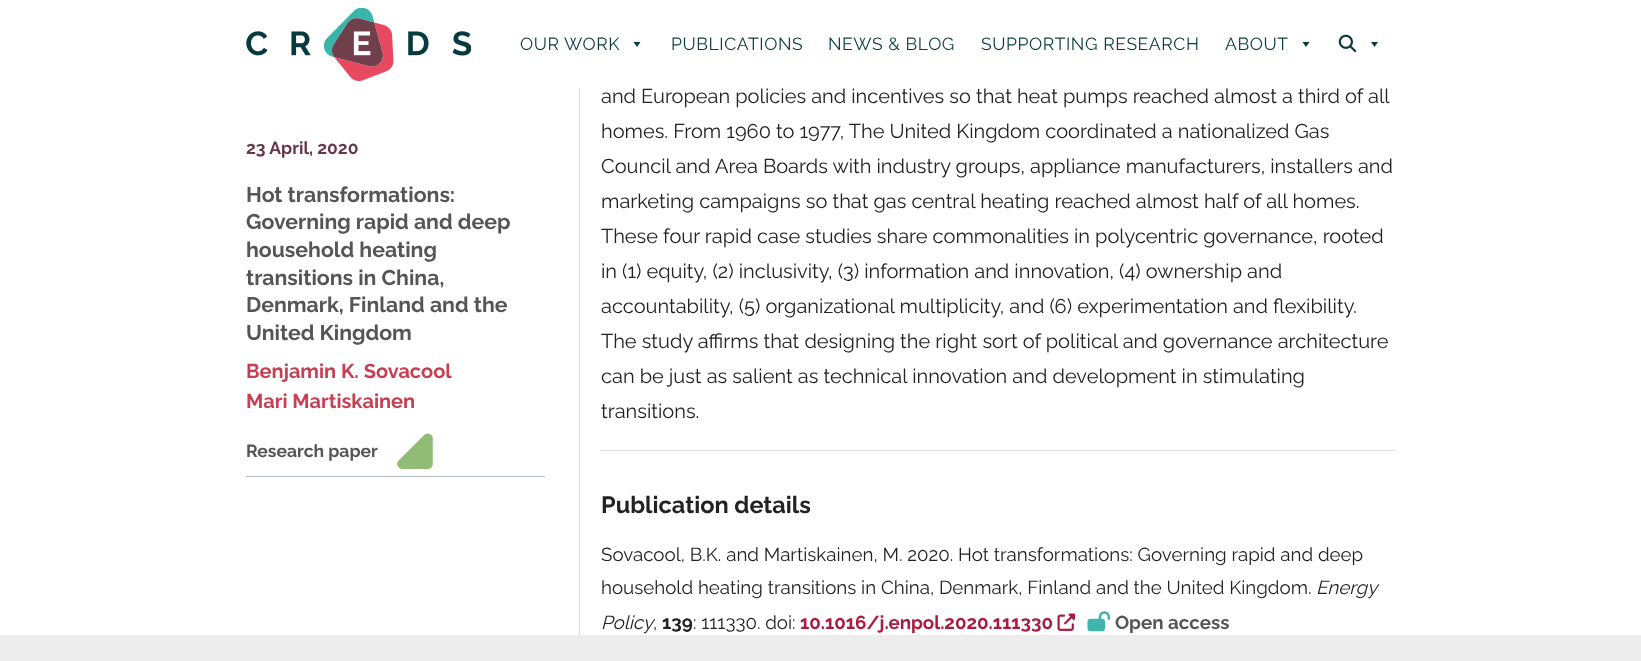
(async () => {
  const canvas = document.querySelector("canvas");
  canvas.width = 1641;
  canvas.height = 661;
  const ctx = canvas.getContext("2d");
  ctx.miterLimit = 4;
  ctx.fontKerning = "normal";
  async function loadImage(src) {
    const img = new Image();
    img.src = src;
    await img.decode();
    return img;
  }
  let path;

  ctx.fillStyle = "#ffffff";
  ctx.fillRect(0, 0, 1641, 661);
  ctx.drawImage(await loadImage("img/1.png"), 246, 8, 225, 73);
  ctx.fillStyle = "#0a3a3e";
  path = new Path2D("M640.5 42L637 47L633.5 42Z");
  ctx.fill(path);
  path = new Path2D("M1309.5 42L1306 47L1302.5 42Z");
  ctx.fill(path);
  ctx.drawImage(await loadImage("img/2.png"), 1338, 34, 19, 19);
  path = new Path2D("M1378 42L1374.5 47L1371 42Z");
  ctx.fill(path);
  ctx.fillStyle = "#b8bec1";
  ctx.fillRect(246, 476, 299, 1);
  ctx.drawImage(await loadImage("img/3.png"), 396, 433, 38, 37);
  ctx.fillStyle = "#dedede";
  ctx.fillRect(579, 88, 1, 547);
  ctx.fillRect(600, 450, 795, 1);
  ctx.drawImage(await loadImage("img/4.png"), 1057, 613, 18, 18);
  ctx.drawImage(await loadImage("img/5.png"), 1087, 611, 23, 21);
  ctx.fillStyle = "#ededed";
  ctx.fillRect(0, 635, 1641, 26);
  ctx.letterSpacing = "0.6px";
  ctx.font = "17.5px Raleway";
  ctx.fillStyle = "#0a3a3e";
  for (const [text, x, y] of [
    ["OUR WORK", 520, 50],
    ["PUBLICATIONS", 671, 50],
    ["NEWS & BLOG", 828, 50],
    ["SUPPORTING RESEARCH", 981, 50],
    ["ABOUT", 1225, 50],
  ]) {
    ctx.fillText(text, x, y);
  }
  ctx.letterSpacing = "0px";
  ctx.font = "bold 17.5px Raleway";
  ctx.fillStyle = "#67364a";
  ctx.fillText("23 April, 2020", 246, 154);
  ctx.font = "bold 21.25px Raleway";
  ctx.fillStyle = "#555555";
  for (const [text, x, y] of [
    ["Hot transformations:", 246, 202],
    ["Governing rapid and deep", 246, 229],
    ["household heating", 246, 257],
    ["transitions in China,", 246, 285],
    ["Denmark, Finland and the", 246, 312],
    ["United Kingdom", 246, 340],
  ]) {
    ctx.fillText(text, x, y);
  }
  ctx.font = "bold 20px Raleway";
  ctx.fillStyle = "#c63f53";
  ctx.fillText("Benjamin K. Sovacool", 246, 378);
  ctx.fillText("Mari Martiskainen", 246, 408);
  ctx.font = "bold 17.5px Raleway";
  ctx.fillStyle = "#555555";
  ctx.fillText("Research paper", 246, 457);
  ctx.font = "20px Raleway";
  ctx.fillStyle = "#222222";
  for (const [text, x, y] of [
    ["and European policies and incentives so that heat pumps reached almost a third of all", 601, 103],
    ["homes. From 1960 to 1977, The United Kingdom coordinated a nationalized Gas", 601, 138],
    ["Council and Area Boards with industry groups, appliance manufacturers, installers and", 601, 173],
    ["marketing campaigns so that gas central heating reached almost half of all homes.", 601, 208],
    ["These four rapid case studies share commonalities in polycentric governance, rooted", 601, 243],
    ["in (1) equity, (2) inclusivity, (3) information and innovation, (4) ownership and", 601, 278],
    ["accountability, (5) organizational multiplicity, and (6) experimentation and flexibility.", 601, 313],
    ["The study affirms that designing the right sort of political and governance architecture", 601, 348],
    ["can be just as salient as technical innovation and development in stimulating", 601, 383],
    ["transitions.", 601, 418],
  ]) {
    ctx.fillText(text, x, y);
  }
  ctx.font = "bold 23.5px Raleway";
  ctx.fillText("Publication details", 601, 513);
  ctx.font = "18.75px Raleway";
  ctx.fillText("Sovacool, B.K. and Martiskainen, M. 2020. Hot transformations: Governing rapid and deep", 601, 561);
  ctx.fillText("household heating transitions in China, Denmark, Finland and the United Kingdom.", 601, 594);
  ctx.font = "italic 18.75px Raleway";
  ctx.fillText("Energy", 1316, 594);
  ctx.fillText("Policy", 601, 629);
  ctx.font = "bold 18.75px Raleway";
  ctx.fillText("139", 662, 629);
  ctx.font = "18.75px Raleway";
  ctx.fillText(": 111330. doi:", 693, 629);
  ctx.font = "bold 18.75px Raleway";
  ctx.fillStyle = "#ac1a40";
  ctx.fillText("10.1016/j.enpol.2020.111330", 800, 629);
  ctx.fillStyle = "#555555";
  ctx.fillText("Open access", 1115, 629);
  ctx.font = "18.75px Raleway";
  ctx.fillStyle = "#222222";
  ctx.fillText(",", 653, 629);
})();
